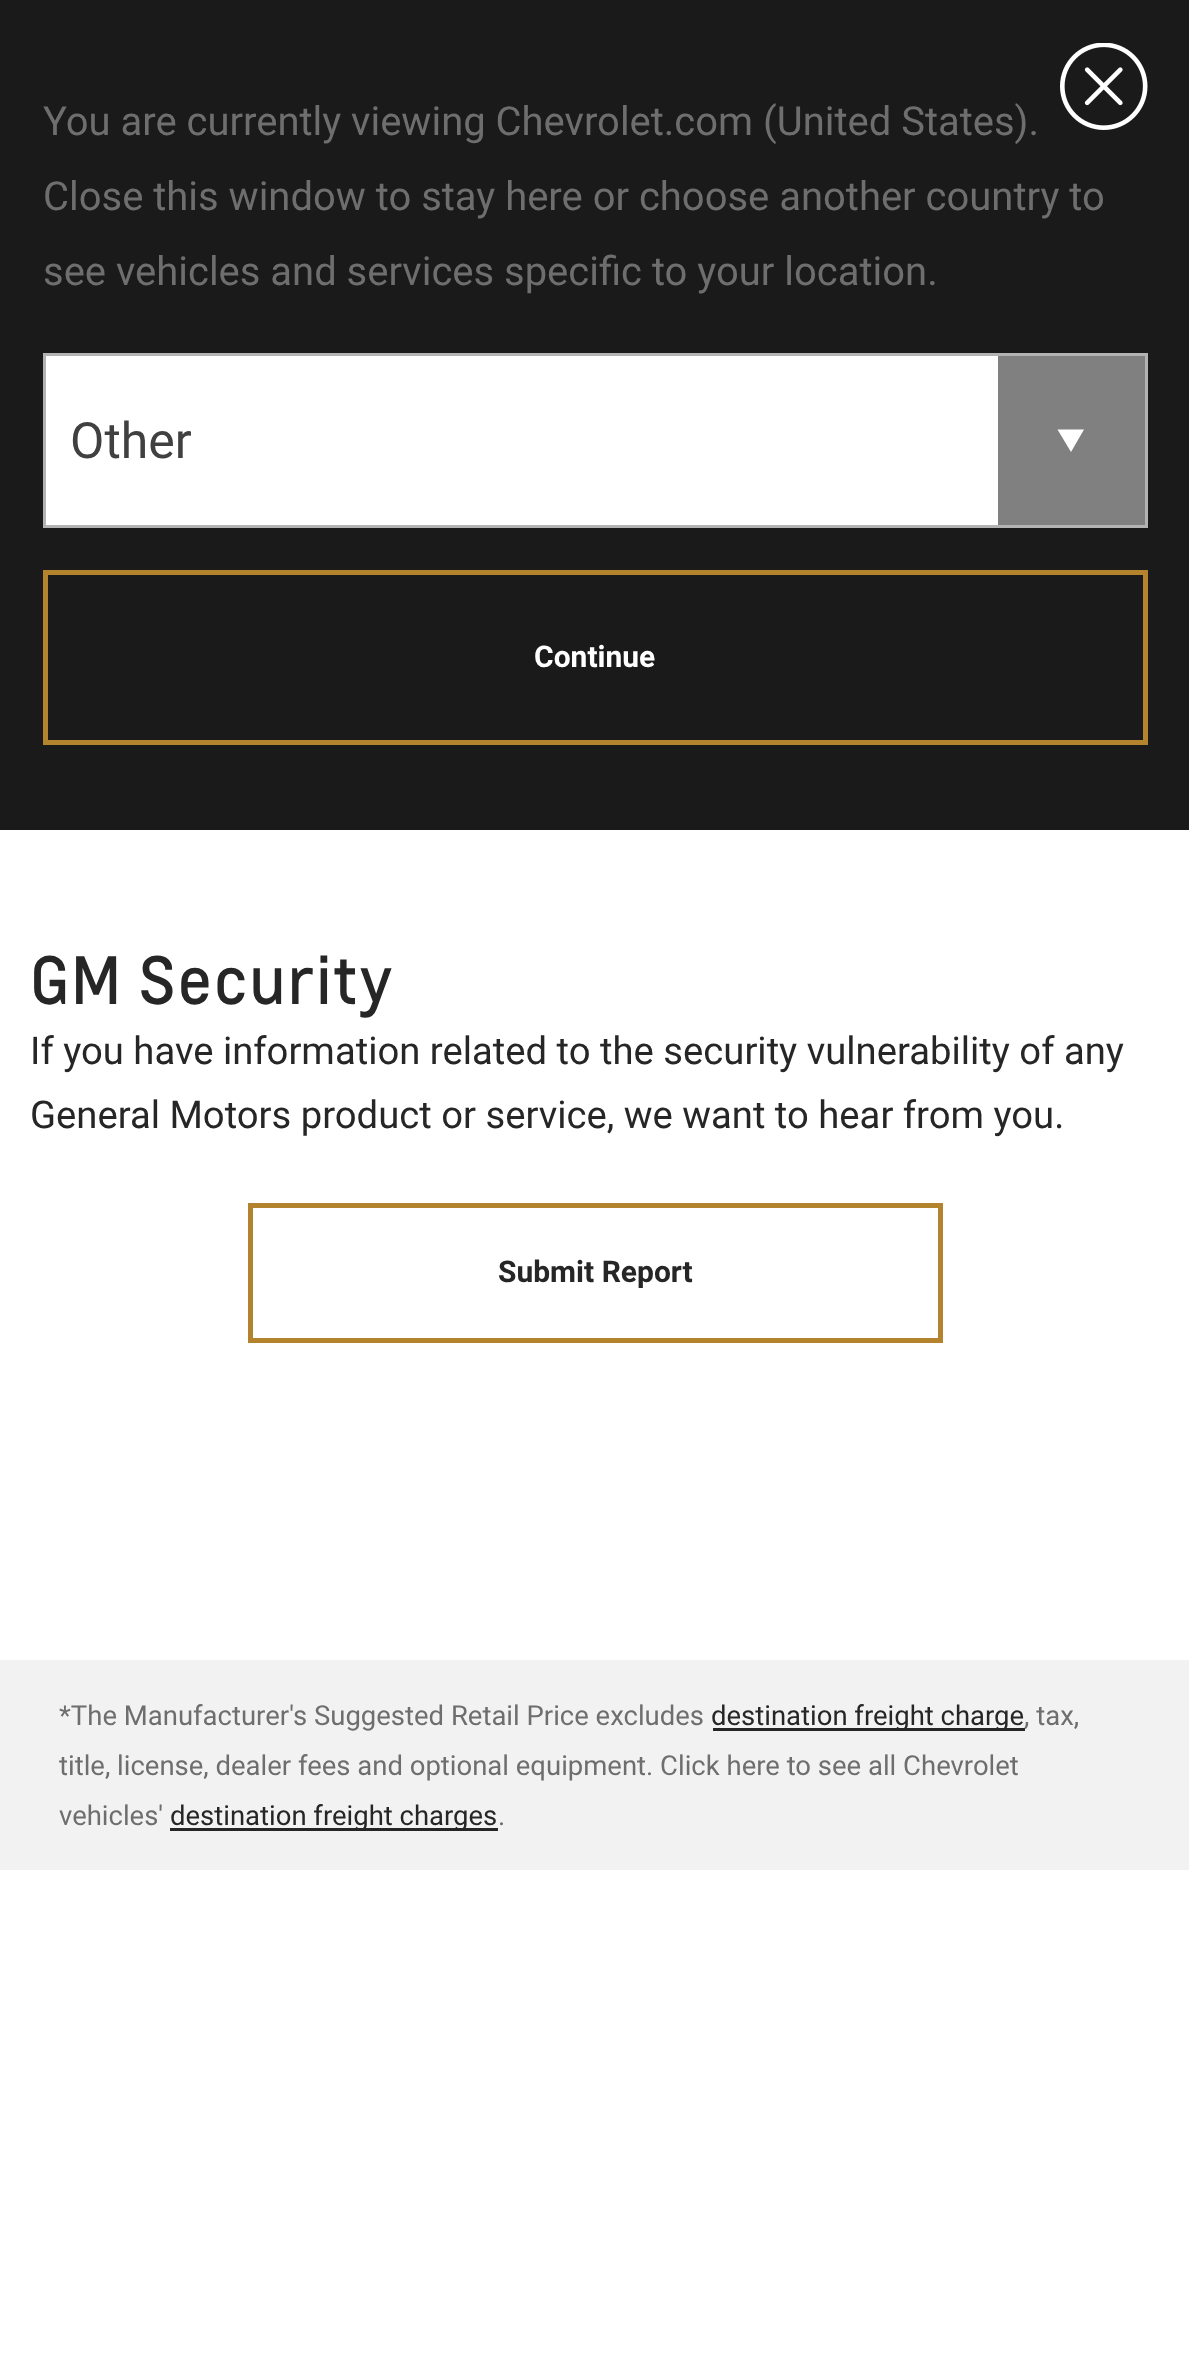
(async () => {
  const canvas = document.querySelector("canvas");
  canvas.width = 1189;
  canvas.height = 2379;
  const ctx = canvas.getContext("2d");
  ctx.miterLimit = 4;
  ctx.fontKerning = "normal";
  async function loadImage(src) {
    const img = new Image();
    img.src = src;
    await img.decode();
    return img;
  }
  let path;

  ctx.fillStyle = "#ffffff";
  ctx.fillRect(0, 0, 1189, 2379);
  ctx.fillStyle = "#1a1a1a";
  ctx.fillRect(0, 0, 1189, 830);
  ctx.drawImage(await loadImage("img/1.png"), 1060, 43, 88, 87);
  ctx.fillStyle = "#ffffff";
  ctx.fillRect(46, 356, 952, 169);
  ctx.fillStyle = "#808080";
  ctx.fillRect(998, 356, 147, 169);
  ctx.fillStyle = "#ffffff";
  path = new Path2D("M1084 429.5L1071 452L1057.5 429.5Z");
  ctx.fill(path, "evenodd");
  ctx.strokeStyle = "#b3b3b3";
  ctx.lineWidth = 3;
  ctx.strokeRect(44.5, 354.5, 1102, 172);
  ctx.strokeStyle = "#b3842d";
  ctx.lineWidth = 5;
  ctx.strokeRect(45.5, 572.5, 1100, 170);
  ctx.strokeRect(250.5, 1205.5, 690, 135);
  for (const [x, y, w, h, color] of [
    [0, 1660, 1189, 210, "#f2f2f2"],
    [713, 1728, 312, 3, "#262626"],
    [170, 1828, 328, 3, "#262626"],
  ]) {
    ctx.fillStyle = color;
    ctx.fillRect(x, y, w, h);
  }
  ctx.font = "40px Roboto";
  ctx.fillStyle = "#6e6e6e";
  for (const [text, x, y] of [
    ["You are currently viewing Chevrolet.com (United States).", 43, 135],
    ["Close this window to stay here or choose another country to", 43, 210],
    ["see vehicles and services specific to your location.", 43, 285],
  ]) {
    ctx.fillText(text, x, y);
  }
  ctx.font = "50px Roboto";
  ctx.fillStyle = "#404040";
  ctx.fillText("Other", 70, 458);
  ctx.font = "bold 30px Roboto";
  ctx.fillStyle = "#ffffff";
  ctx.fillText("Continue", 534, 667);
  ctx.letterSpacing = "1.75px";
  ctx.font = "63.75px 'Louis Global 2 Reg'";
  ctx.fillStyle = "#262626";
  ctx.fillText("GM Security", 30, 1004);
  ctx.letterSpacing = "0px";
  ctx.font = "38.25px Roboto";
  ctx.fillText("If you have information related to the security vulnerability of any", 30, 1064);
  ctx.fillText("General Motors product or service, we want to hear from you.", 30, 1128);
  ctx.font = "bold 30px Roboto";
  ctx.fillText("Submit Report", 498, 1282);
  ctx.font = "27.5px Roboto";
  ctx.fillStyle = "#6e6e6e";
  ctx.fillText("*The Manufacturer's Suggested Retail Price excludes", 59, 1725);
  ctx.fillStyle = "#262626";
  ctx.fillText("destination freight charge", 711, 1725);
  ctx.fillStyle = "#6e6e6e";
  for (const [text, x, y] of [
    [", tax,", 1024, 1725],
    ["title, license, dealer fees and optional equipment. Click here to see all Chevrolet", 59, 1775],
    ["vehicles'", 59, 1825],
  ]) {
    ctx.fillText(text, x, y);
  }
  ctx.fillStyle = "#262626";
  ctx.fillText("destination freight charges", 170, 1825);
  ctx.fillStyle = "#6e6e6e";
  ctx.fillText(".", 498, 1825);
})();
